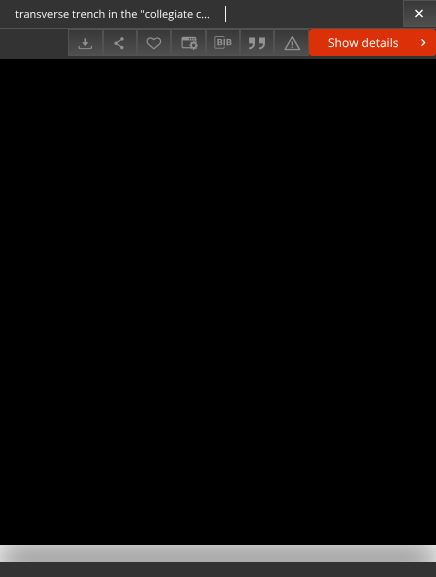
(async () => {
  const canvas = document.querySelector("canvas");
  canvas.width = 436;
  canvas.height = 577;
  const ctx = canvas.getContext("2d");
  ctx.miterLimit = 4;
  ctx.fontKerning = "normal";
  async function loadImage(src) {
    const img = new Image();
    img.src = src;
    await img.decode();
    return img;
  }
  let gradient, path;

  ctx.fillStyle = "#f9f9f9";
  ctx.fillRect(0, 0, 436, 577);
  for (const [x, y, w, h, color] of [
    [0, 0, 436, 28, "#333333"],
    [0, 28, 436, 1, "#525252"],
    [225, 6, 1, 16, "#f5f5f5"],
  ]) {
    ctx.fillStyle = color;
    ctx.fillRect(x, y, w, h);
  }
  gradient = ctx.createLinearGradient(420, 1, 420, 26);
  gradient.addColorStop(0, "#383838");
  gradient.addColorStop(1, "#4f4f4f");
  ctx.fillStyle = gradient;
  ctx.fillRect(404, 1, 32, 25);
  for (const [x, y, w, h, color] of [
    [403, 0, 33, 1, "#525252"],
    [403, 26, 33, 1, "#525252"],
    [403, 0, 1, 27, "#525252"],
  ]) {
    ctx.fillStyle = color;
    ctx.fillRect(x, y, w, h);
  }
  ctx.fillStyle = "#ffffff";
  path = new Path2D("M415 16.5L422 9.5L423 10.5L416 17.5Z");
  ctx.fill(path);
  path = new Path2D("M416 9.5L423 16.5L422 17.5L415 10.5Z");
  ctx.fill(path);
  ctx.fillStyle = "#333333";
  ctx.fillRect(0, 29, 436, 30);
  gradient = ctx.createLinearGradient(86, 30, 86, 55);
  gradient.addColorStop(0, "#383838");
  gradient.addColorStop(1, "#4f4f4f");
  ctx.fillStyle = gradient;
  ctx.fillRect(69, 30, 33, 25);
  ctx.strokeStyle = "#525252";
  ctx.strokeRect(68.5, 29.5, 34, 26);
  ctx.drawImage(await loadImage("img/1.png"), 78, 38, 14, 12);
  gradient = ctx.createLinearGradient(120, 30, 120, 55);
  gradient.addColorStop(0, "#383838");
  gradient.addColorStop(1, "#4f4f4f");
  ctx.fillStyle = gradient;
  ctx.fillRect(104, 30, 32, 25);
  ctx.strokeRect(103.5, 29.5, 33, 26);
  ctx.drawImage(await loadImage("img/2.png"), 114, 37, 10, 13);
  gradient = ctx.createLinearGradient(154, 30, 154, 55);
  gradient.addColorStop(0, "#383838");
  gradient.addColorStop(1, "#4f4f4f");
  ctx.fillStyle = gradient;
  ctx.fillRect(138, 30, 32, 25);
  ctx.strokeRect(137.5, 29.5, 33, 26);
  ctx.drawImage(await loadImage("img/3.png"), 146, 37, 16, 13);
  gradient = ctx.createLinearGradient(189, 30, 189, 55);
  gradient.addColorStop(0, "#383838");
  gradient.addColorStop(1, "#4f4f4f");
  ctx.fillStyle = gradient;
  ctx.fillRect(172, 30, 33, 25);
  ctx.strokeRect(171.5, 29.5, 34, 26);
  ctx.drawImage(await loadImage("img/4.png"), 181, 36, 17, 14);
  gradient = ctx.createLinearGradient(223, 30, 223, 55);
  gradient.addColorStop(0, "#383838");
  gradient.addColorStop(1, "#4f4f4f");
  ctx.fillStyle = gradient;
  ctx.fillRect(207, 30, 32, 25);
  ctx.strokeRect(206.5, 29.5, 33, 26);
  ctx.drawImage(await loadImage("img/5.png"), 214, 36, 18, 13);
  gradient = ctx.createLinearGradient(257, 30, 257, 55);
  gradient.addColorStop(0, "#383838");
  gradient.addColorStop(1, "#4f4f4f");
  ctx.fillStyle = gradient;
  ctx.fillRect(241, 30, 32, 25);
  ctx.strokeRect(240.5, 29.5, 33, 26);
  ctx.drawImage(await loadImage("img/6.png"), 249, 37, 16, 13);
  gradient = ctx.createLinearGradient(292, 30, 292, 55);
  gradient.addColorStop(0, "#383838");
  gradient.addColorStop(1, "#4f4f4f");
  ctx.fillStyle = gradient;
  ctx.fillRect(275, 30, 33, 25);
  ctx.strokeRect(274.5, 29.5, 34, 26);
  ctx.drawImage(await loadImage("img/7.png"), 284, 36, 17, 15);
  ctx.fillStyle = "#dc3009";
  ctx.beginPath();
  ctx.roundRect(309.5, 29.5, 126, 26, 2.5);
  ctx.fill();
  ctx.strokeStyle = "#dc3009";
  ctx.stroke();
  ctx.drawImage(await loadImage("img/8.png"), 421, 39, 5, 7);
  ctx.fillStyle = "#333333";
  ctx.filter = "blur(15px)";
  ctx.beginPath();
  ctx.rect(0, 551, 436, 15);
  ctx.fill();
  ctx.filter = "none";
  ctx.fillRect(0, 562, 436, 15);
  ctx.fillStyle = "#000000";
  ctx.fillRect(0, 59, 436, 486);
  ctx.font = "11px Open Sans";
  ctx.fillStyle = "#f5f5f5";
  ctx.fillText("transverse trench in the \"collegiate c…", 15, 18);
  ctx.font = "12px Open Sans";
  ctx.fillStyle = "#ffffff";
  ctx.fillText("Show details", 328, 47);
})();
